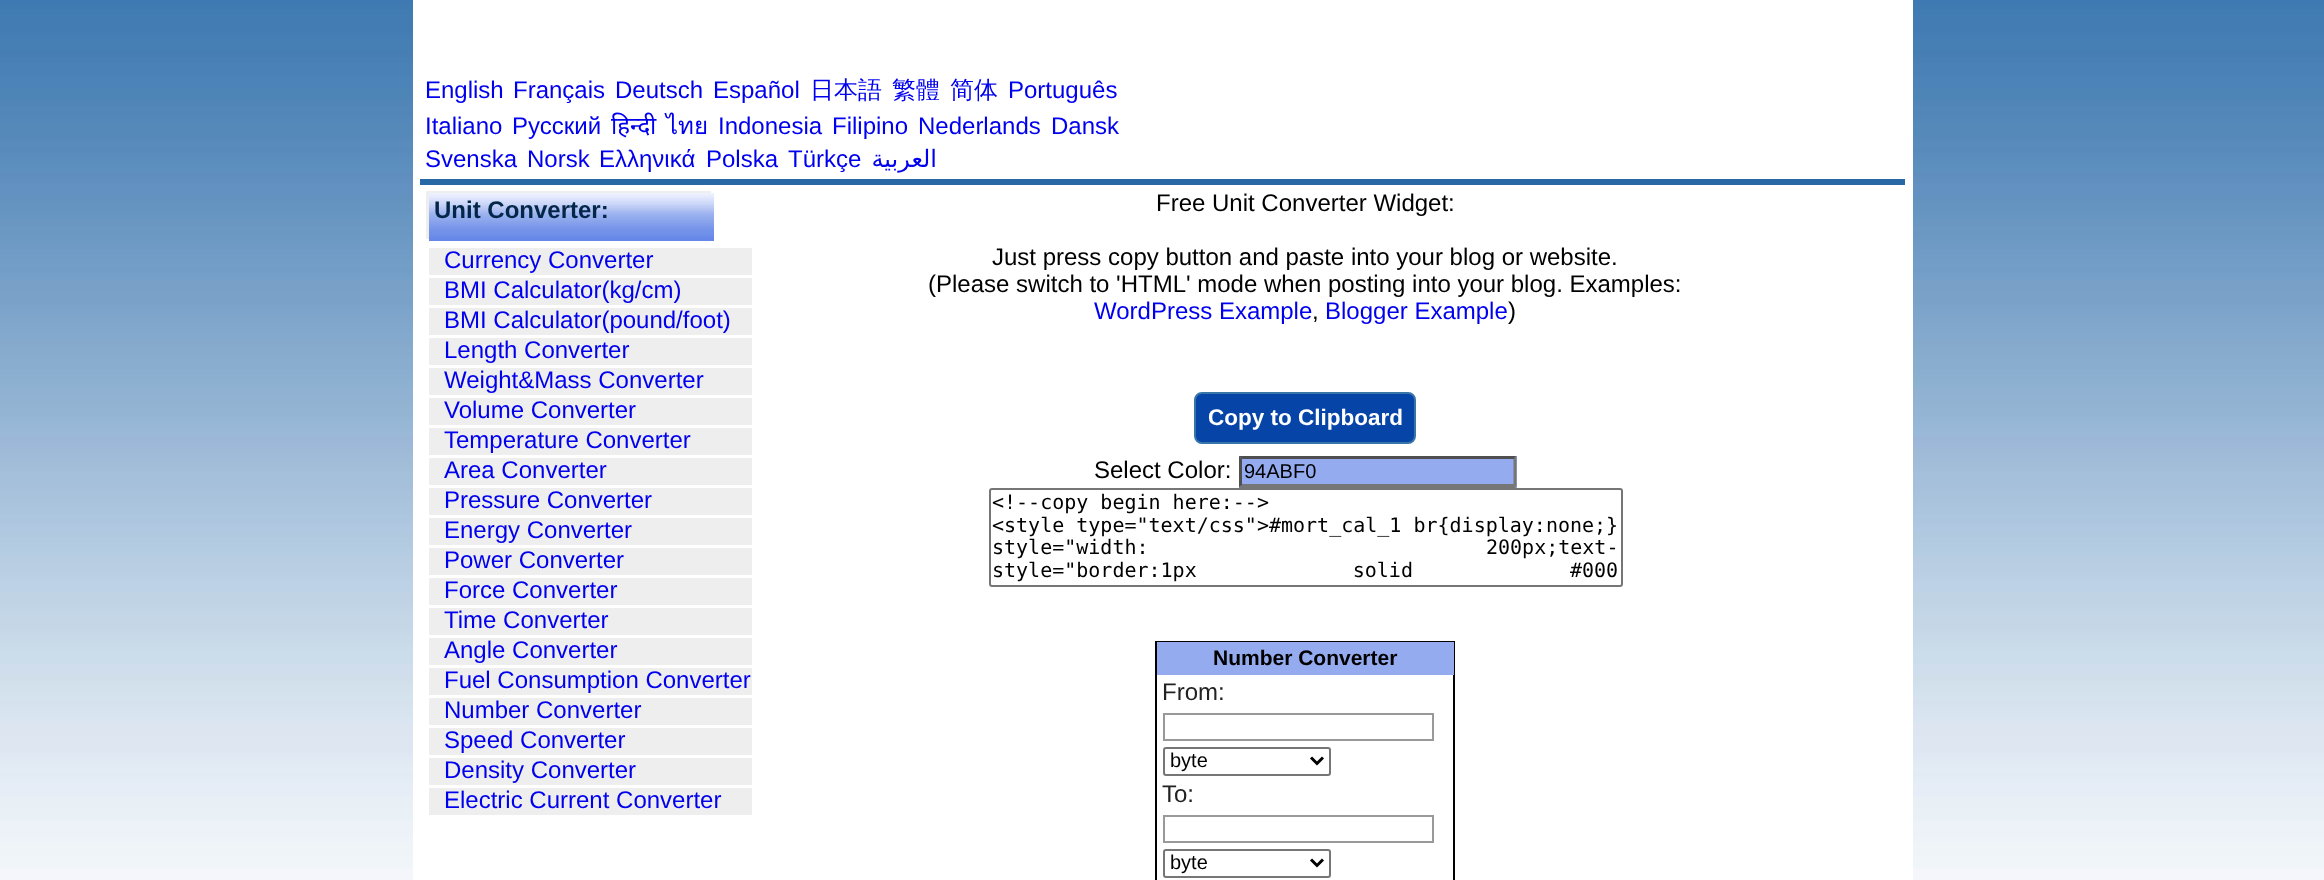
(async () => {
  const canvas = document.querySelector("canvas");
  canvas.width = 2324;
  canvas.height = 880;
  const ctx = canvas.getContext("2d");
  ctx.miterLimit = 4;
  ctx.fontKerning = "normal";
  async function loadImage(src) {
    const img = new Image();
    img.src = src;
    await img.decode();
    return img;
  }
  let path;

  ctx.fillStyle = "#ffffff";
  ctx.fillRect(0, 0, 2324, 880);
  ctx.drawImage(await loadImage("img/1.png"), 0, 0, 2324, 880);
  for (const [x, y, w, h, color] of [
    [413, 0, 1500, 880, "#ffffff"],
    [420, 179, 1485, 6, "#2869a5"],
    [426, 191, 285, 48, "#eeeeee"],
  ]) {
    ctx.fillStyle = color;
    ctx.fillRect(x, y, w, h);
  }
  ctx.drawImage(await loadImage("img/2.png"), 429, 193, 285, 48);
  for (const [x, y, w, h, color] of [
    [429, 248, 323, 27, "#eeeeee"],
    [429, 278, 323, 27, "#eeeeee"],
    [429, 308, 323, 27, "#eeeeee"],
    [429, 338, 323, 27, "#eeeeee"],
    [429, 368, 323, 27, "#eeeeee"],
    [429, 398, 323, 27, "#eeeeee"],
    [429, 428, 323, 27, "#eeeeee"],
    [429, 458, 323, 27, "#eeeeee"],
    [429, 488, 323, 27, "#eeeeee"],
    [429, 518, 323, 27, "#eeeeee"],
    [429, 548, 323, 27, "#eeeeee"],
    [429, 578, 323, 27, "#eeeeee"],
    [429, 608, 323, 27, "#eeeeee"],
    [429, 638, 323, 27, "#eeeeee"],
    [429, 668, 323, 27, "#eeeeee"],
    [429, 698, 323, 27, "#eeeeee"],
    [429, 728, 323, 27, "#eeeeee"],
    [429, 758, 323, 27, "#eeeeee"],
    [429, 788, 323, 27, "#eeeeee"],
  ]) {
    ctx.fillStyle = color;
    ctx.fillRect(x, y, w, h);
  }
  ctx.fillStyle = "#0744a8";
  ctx.beginPath();
  ctx.roundRect(1195, 393, 220, 50, 7);
  ctx.fill();
  ctx.strokeStyle = "#3774a8";
  ctx.lineWidth = 2;
  ctx.stroke();
  ctx.fillStyle = "#94abf0";
  ctx.fillRect(1239, 456, 278, 32);
  ctx.fillStyle = "#4f4f4f";
  path = new Path2D("M1239 456H1516L1514 459H1242Z");
  ctx.fill(path);
  ctx.fillStyle = "#767676";
  path = new Path2D("M1516.5 456V487.5L1513.5 484.5V459Z");
  ctx.fill(path);
  path = new Path2D("M1516 488H1239L1242 484H1514Z");
  ctx.fill(path);
  ctx.fillStyle = "#4f4f4f";
  path = new Path2D("M1239 487.5V456L1242 459V484.5Z");
  ctx.fill(path);
  ctx.beginPath();
  ctx.roundRect(990, 489, 632, 97, 2);
  ctx.strokeStyle = "#767676";
  ctx.stroke();
  ctx.strokeStyle = "#000000";
  ctx.strokeRect(1156, 642, 298, 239);
  ctx.fillStyle = "#94abf0";
  ctx.fillRect(1157, 642, 297, 33);
  ctx.strokeStyle = "#999999";
  ctx.strokeRect(1164, 714, 269, 26);
  ctx.beginPath();
  ctx.roundRect(1164, 748, 166, 27, 2);
  ctx.strokeStyle = "#767676";
  ctx.stroke();
  path = new Path2D("M1311 757.5L1317 763.5L1323 757.5");
  ctx.strokeStyle = "#000000";
  ctx.lineWidth = 3;
  ctx.stroke(path);
  ctx.strokeStyle = "#999999";
  ctx.lineWidth = 2;
  ctx.strokeRect(1164, 816, 269, 26);
  ctx.beginPath();
  ctx.roundRect(1164, 850, 166, 27, 2);
  ctx.strokeStyle = "#767676";
  ctx.stroke();
  path = new Path2D("M1311 859.5L1317 865.5L1323 859.5");
  ctx.strokeStyle = "#000000";
  ctx.lineWidth = 3;
  ctx.stroke(path);
  ctx.font = "24px Liberation Sans";
  ctx.fillStyle = "#0000ee";
  for (const [text, x, y] of [
    ["English", 425, 98],
    ["Français", 513, 98],
    ["Deutsch", 615, 98],
    ["Español", 713, 98],
  ]) {
    ctx.fillText(text, x, y);
  }
  ctx.font = "500 24px WenQuanYi Zen Hei";
  for (const [text, x, y] of [
    ["日本語", 810, 98],
    ["繁體", 892, 98],
    ["简体", 950, 98],
  ]) {
    ctx.fillText(text, x, y);
  }
  ctx.font = "24px Liberation Sans";
  for (const [text, x, y] of [
    ["Português", 1008, 98],
    ["Italiano", 425, 134],
    ["Русский", 512, 134],
  ]) {
    ctx.fillText(text, x, y);
  }
  ctx.font = "24px Noto Sans";
  ctx.fillText("हिन्दी", 611, 134);
  ctx.font = "24px Loma";
  ctx.fillText("ไทย", 666, 134);
  ctx.font = "24px Liberation Sans";
  for (const [text, x, y] of [
    ["Indonesia", 718, 134],
    ["Filipino", 832, 134],
    ["Nederlands", 918, 134],
    ["Dansk", 1051, 134],
    ["Svenska", 425, 167],
    ["Norsk", 527, 167],
    ["Ελληνικά", 599, 167],
    ["Polska", 706, 167],
    ["Türkçe", 788, 167],
  ]) {
    ctx.fillText(text, x, y);
  }
  ctx.direction = "rtl";
  ctx.font = "24px DejaVu Sans";
  ctx.fillText("العربية", 937, 167);
  ctx.direction = "ltr";
  ctx.font = "bold 24px Liberation Sans";
  ctx.fillStyle = "#032749";
  ctx.fillText("Unit Converter:", 434, 218);
  ctx.font = "24px Liberation Sans";
  ctx.fillStyle = "#0000ee";
  for (const [text, x, y] of [
    ["Currency Converter", 444, 268],
    ["BMI Calculator(kg/cm)", 444, 298],
    ["BMI Calculator(pound/foot)", 444, 328],
    ["Length Converter", 444, 358],
    ["Weight&Mass Converter", 444, 388],
    ["Volume Converter", 444, 418],
    ["Temperature Converter", 444, 448],
    ["Area Converter", 444, 478],
    ["Pressure Converter", 444, 508],
    ["Energy Converter", 444, 538],
    ["Power Converter", 444, 568],
    ["Force Converter", 444, 598],
    ["Time Converter", 444, 628],
    ["Angle Converter", 444, 658],
    ["Fuel Consumption Converter", 444, 688],
    ["Number Converter", 444, 718],
    ["Speed Converter", 444, 748],
    ["Density Converter", 444, 778],
    ["Electric Current Converter", 444, 808],
  ]) {
    ctx.fillText(text, x, y);
  }
  ctx.fillStyle = "#000000";
  for (const [text, x, y] of [
    ["Free Unit Converter Widget:", 1156, 211],
    ["Just press copy button and paste into your blog or website.", 992, 265],
    ["(Please switch to 'HTML' mode when posting into your blog. Examples:", 928, 292],
  ]) {
    ctx.fillText(text, x, y);
  }
  ctx.fillStyle = "#0000ee";
  ctx.fillText("WordPress Example", 1094, 319);
  ctx.fillStyle = "#000000";
  ctx.fillText(",", 1312, 319);
  ctx.fillStyle = "#0000ee";
  ctx.fillText("Blogger Example", 1325, 319);
  ctx.fillStyle = "#000000";
  ctx.fillText(")", 1508, 319);
  ctx.font = "bold 22.5px Liberation Sans";
  ctx.fillStyle = "#ffffff";
  ctx.fillText("Copy to Clipboard", 1208, 425);
  ctx.font = "24px Liberation Sans";
  ctx.fillStyle = "#000000";
  ctx.fillText("Select Color:", 1094, 478);
  ctx.font = "20px Liberation Sans";
  ctx.fillText("94ABF0", 1244, 478);
  ctx.font = "20px DejaVu Sans Mono";
  for (const [text, x, y] of [
    ["<\!--copy begin here:-->", 992, 509],
    ["<style type=\"text/css\">#mort_cal_1 br{display:none;}", 992, 532],
    ["style=\"width:", 992, 554],
    ["200px;text-", 1486, 554],
  ]) {
    ctx.fillText(text, x, y);
  }
  ctx.wordSpacing = "144px";
  ctx.fillText("style=\"border:1px solid", 992, 577);
  ctx.wordSpacing = "0px";
  ctx.fillText("#000", 1570, 577);
  ctx.font = "bold 21px Liberation Sans";
  ctx.fillText("Number Converter", 1213, 665);
  ctx.font = "24px Liberation Sans";
  ctx.fillStyle = "#222222";
  ctx.fillText("From:", 1162, 700);
  ctx.font = "20px Liberation Sans";
  ctx.fillStyle = "#000000";
  ctx.fillText("byte", 1170, 767);
  ctx.font = "24px Liberation Sans";
  ctx.fillStyle = "#222222";
  ctx.fillText("To:", 1162, 802);
  ctx.font = "20px Liberation Sans";
  ctx.fillStyle = "#000000";
  ctx.fillText("byte", 1170, 869);
})();
